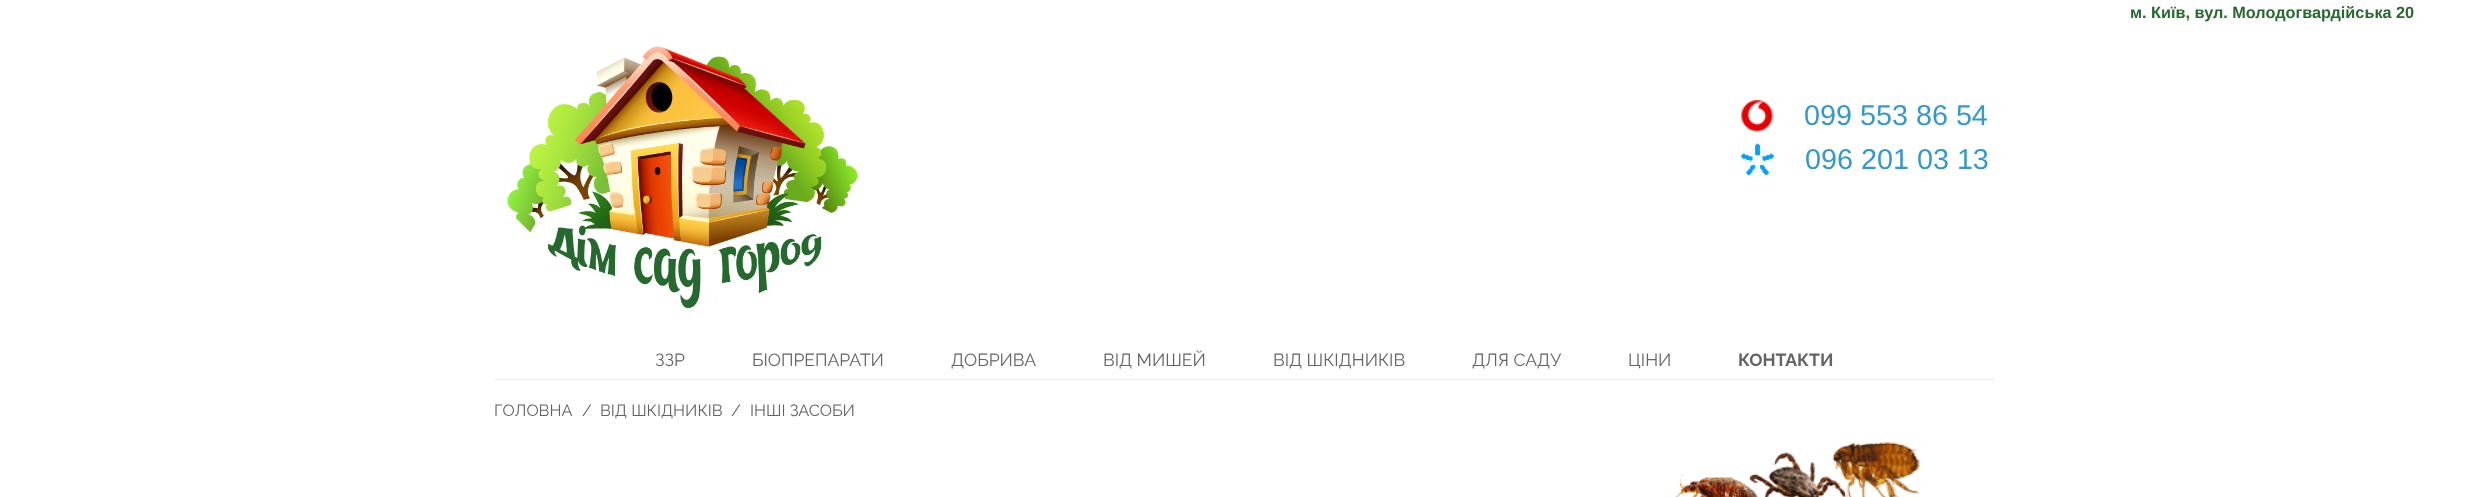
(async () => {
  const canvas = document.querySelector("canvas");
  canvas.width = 2488;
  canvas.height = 497;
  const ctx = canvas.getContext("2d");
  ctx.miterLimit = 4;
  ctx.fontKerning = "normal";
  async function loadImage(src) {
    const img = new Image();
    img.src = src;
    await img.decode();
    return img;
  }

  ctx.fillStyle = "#ffffff";
  ctx.fillRect(0, 0, 2488, 497);
  ctx.drawImage(await loadImage("img/1.png"), 507, 46, 351, 263);
  ctx.drawImage(await loadImage("img/2.png"), 1741, 100, 32, 32);
  ctx.drawImage(await loadImage("img/3.png"), 1741, 143, 33, 32);
  ctx.fillStyle = "#ededed";
  ctx.fillRect(495, 379, 1500, 1);
  ctx.drawImage(await loadImage("img/4.png"), 1675, 441, 245, 56);
  ctx.font = "bold 16.25px Liberation Sans";
  ctx.fillStyle = "#26692e";
  ctx.fillText("м. Київ, вул. Молодогвардійська 20", 2130, 18);
  ctx.font = "28.75px Liberation Sans";
  ctx.fillStyle = "#3399cc";
  ctx.fillText("099 553 86 54", 1804, 125);
  ctx.fillText("096 201 03 13", 1805, 169);
  ctx.font = "17.5px Raleway";
  ctx.fillStyle = "#636363";
  for (const [text, x, y] of [
    ["ЗЗР", 655, 366],
    ["БІОПРЕПАРАТИ", 752, 366],
    ["ДОБРИВА", 951, 366],
    ["ВІД МИШЕЙ", 1103, 366],
    ["ВІД ШКІДНИКІВ", 1273, 366],
    ["ДЛЯ САДУ", 1472, 366],
    ["ЦІНИ", 1628, 366],
  ]) {
    ctx.fillText(text, x, y);
  }
  ctx.font = "bold 17.5px Raleway";
  ctx.fillText("КОНТАКТИ", 1738, 366);
  ctx.font = "16.25px Raleway";
  for (const [text, x, y] of [
    ["ГОЛОВНА", 494, 416],
    ["/", 582, 416],
    ["ВІД ШКІДНИКІВ", 600, 416],
    ["/", 731, 416],
    ["ІНШІ ЗАСОБИ", 750, 416],
  ]) {
    ctx.fillText(text, x, y);
  }
})();
